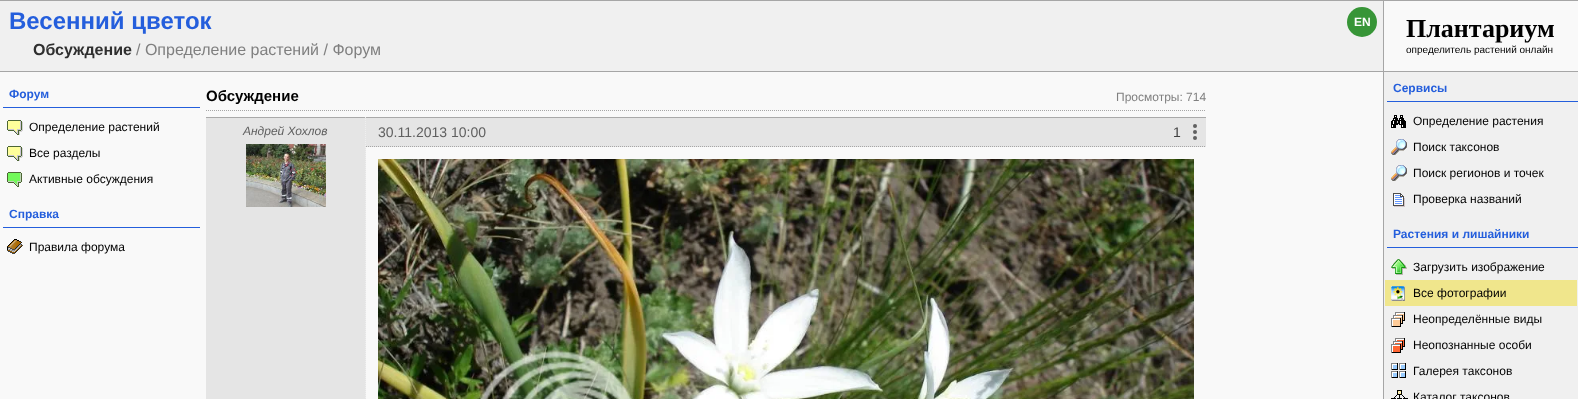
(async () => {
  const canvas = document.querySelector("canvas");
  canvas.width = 1578;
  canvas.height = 399;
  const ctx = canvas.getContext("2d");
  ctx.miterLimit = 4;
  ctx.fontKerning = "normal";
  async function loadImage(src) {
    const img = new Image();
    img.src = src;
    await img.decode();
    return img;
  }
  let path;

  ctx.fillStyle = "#f9f9f9";
  ctx.fillRect(0, 0, 1578, 399);
  ctx.fillStyle = "#f0f0f0";
  ctx.fillRect(0, 1, 1383, 70);
  ctx.fillStyle = "#379537";
  ctx.beginPath();
  ctx.arc(1362, 22, 15, 0, Math.PI * 2);
  ctx.fill();
  for (const [x, y, w, h, color] of [
    [0, 0, 1578, 1, "#a6a6a6"],
    [0, 71, 1578, 1, "#a6a6a6"],
    [1383, 0, 1, 399, "#a6a6a6"],
    [3, 107, 197, 1, "#245edc"],
  ]) {
    ctx.fillStyle = color;
    ctx.fillRect(x, y, w, h);
  }
  ctx.drawImage(await loadImage("img/1.png"), 7, 120, 16, 15);
  ctx.drawImage(await loadImage("img/1.png"), 7, 146, 16, 15);
  ctx.drawImage(await loadImage("img/2.png"), 7, 172, 15, 15);
  ctx.fillRect(3, 227, 197, 1);
  ctx.drawImage(await loadImage("img/3.png"), 7, 239, 16, 15);
  path = new Path2D("M206 110.5H1206");
  ctx.strokeStyle = "#a6a6a6";
  ctx.setLineDash([1, 1]);
  ctx.stroke(path);
  ctx.fillStyle = "#e5e5e5";
  ctx.fillRect(206, 118, 160, 281);
  ctx.fillStyle = "#a9a9a9";
  ctx.fillRect(206, 117, 1000, 1);
  path = new Path2D("M365.5 117V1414");
  ctx.strokeStyle = "#efefef";
  ctx.stroke(path);
  ctx.drawImage(await loadImage("img/4.png"), 246, 144, 80, 63);
  ctx.fillStyle = "#e5e5e5";
  ctx.fillRect(366, 118, 840, 29);
  path = new Path2D("M366 146.5H1206");
  ctx.strokeStyle = "#a6a6a6";
  ctx.stroke(path);
  ctx.fillStyle = "#606060";
  ctx.beginPath();
  ctx.arc(1195, 126, 2, 0, Math.PI * 2);
  ctx.fill();
  ctx.beginPath();
  ctx.arc(1195, 132, 2, 0, Math.PI * 2);
  ctx.fill();
  ctx.beginPath();
  ctx.arc(1195, 138, 2, 0, Math.PI * 2);
  ctx.fill();
  ctx.drawImage(await loadImage("img/5.png"), 378, 159, 816, 240);
  ctx.fillStyle = "#f0f0f0";
  ctx.fillRect(1384, 72, 194, 327);
  ctx.fillStyle = "#245edc";
  ctx.fillRect(1387, 101, 191, 1);
  ctx.drawImage(await loadImage("img/6.png"), 1391, 115, 15, 13);
  ctx.drawImage(await loadImage("img/7.png"), 1391, 139, 16, 16);
  ctx.drawImage(await loadImage("img/7.png"), 1391, 165, 16, 16);
  ctx.drawImage(await loadImage("img/8.png"), 1393, 193, 12, 14);
  ctx.fillRect(1387, 247, 191, 1);
  ctx.drawImage(await loadImage("img/9.png"), 1391, 259, 16, 16);
  ctx.fillStyle = "#f0e68c";
  ctx.fillRect(1385, 280, 192, 26);
  ctx.drawImage(await loadImage("img/10.png"), 1391, 286, 14, 15);
  ctx.drawImage(await loadImage("img/11.png"), 1391, 312, 14, 15);
  ctx.drawImage(await loadImage("img/12.png"), 1391, 338, 14, 15);
  ctx.drawImage(await loadImage("img/13.png"), 1391, 363, 15, 15);
  ctx.drawImage(await loadImage("img/14.png"), 1391, 390, 17, 9);
  ctx.font = "bold 24px Liberation Sans";
  ctx.fillStyle = "#245edc";
  ctx.fillText("Весенний цветок", 9, 29);
  ctx.font = "bold 16px Liberation Sans";
  ctx.fillStyle = "#2f2f2f";
  ctx.fillText("Обсуждение", 33, 55);
  ctx.font = "16px Liberation Sans";
  ctx.fillStyle = "#808080";
  ctx.fillText("/ Определение растений / Форум", 136, 55);
  ctx.font = "bold 12px Liberation Sans";
  ctx.fillStyle = "#fefefe";
  ctx.fillText("EN", 1354, 26);
  ctx.font = "bold 26px Liberation Serif";
  ctx.fillStyle = "#000000";
  ctx.fillText("Плантариум", 1406, 37);
  ctx.font = "10px Liberation Sans";
  ctx.fillText("определитель растений онлайн", 1406, 53);
  ctx.font = "bold 12px Liberation Sans";
  ctx.fillStyle = "#245edc";
  ctx.fillText("Форум", 9, 98);
  ctx.font = "12px Liberation Sans";
  ctx.fillStyle = "#000000";
  for (const [text, x, y] of [
    ["Определение растений", 29, 131],
    ["Все разделы", 29, 157],
    ["Активные обсуждения", 29, 183],
  ]) {
    ctx.fillText(text, x, y);
  }
  ctx.font = "bold 12px Liberation Sans";
  ctx.fillStyle = "#245edc";
  ctx.fillText("Справка", 9, 218);
  ctx.font = "12px Liberation Sans";
  ctx.fillStyle = "#000000";
  ctx.fillText("Правила форума", 29, 251);
  ctx.font = "bold 15px Liberation Sans";
  ctx.fillText("Обсуждение", 206, 101);
  ctx.font = "12px Liberation Sans";
  ctx.fillStyle = "#808080";
  ctx.fillText("Просмотры: 714", 1116, 101);
  ctx.font = "italic 12px Liberation Sans";
  ctx.fillStyle = "#606060";
  ctx.fillText("Андрей Хохлов", 243, 135);
  ctx.font = "14px Liberation Sans";
  ctx.fillText("30.11.2013 10:00", 378, 137);
  ctx.fillStyle = "#404040";
  ctx.fillText("1", 1173, 137);
  ctx.font = "bold 12px Liberation Sans";
  ctx.fillStyle = "#245edc";
  ctx.fillText("Сервисы", 1393, 92);
  ctx.font = "12px Liberation Sans";
  ctx.fillStyle = "#000000";
  for (const [text, x, y] of [
    ["Определение растения", 1413, 125],
    ["Поиск таксонов", 1413, 151],
    ["Поиск регионов и точек", 1413, 177],
    ["Проверка названий", 1413, 203],
  ]) {
    ctx.fillText(text, x, y);
  }
  ctx.font = "bold 12px Liberation Sans";
  ctx.fillStyle = "#245edc";
  ctx.fillText("Растения и лишайники", 1393, 238);
  ctx.font = "12px Liberation Sans";
  ctx.fillStyle = "#000000";
  for (const [text, x, y] of [
    ["Загрузить изображение", 1413, 271],
    ["Все фотографии", 1413, 297],
    ["Неопределённые виды", 1413, 323],
    ["Неопознанные особи", 1413, 349],
    ["Галерея таксонов", 1413, 375],
    ["Каталог таксонов", 1413, 401],
  ]) {
    ctx.fillText(text, x, y);
  }
})();
